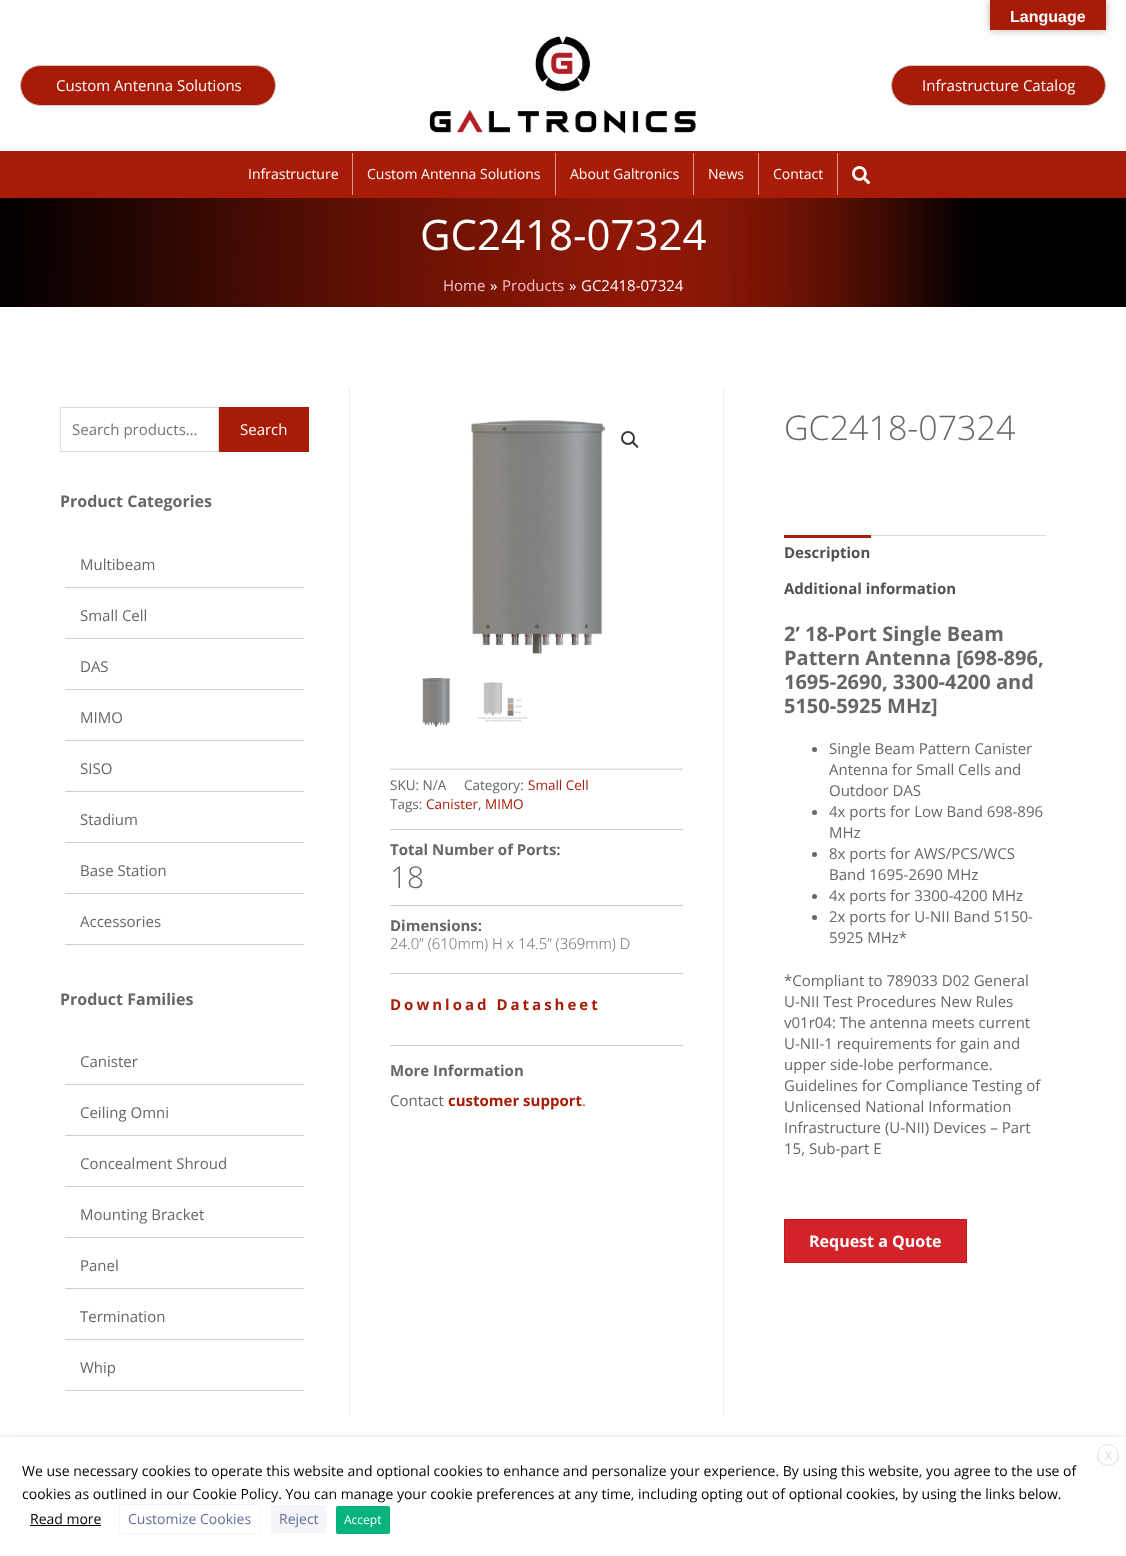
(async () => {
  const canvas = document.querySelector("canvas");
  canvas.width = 1126;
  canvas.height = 1556;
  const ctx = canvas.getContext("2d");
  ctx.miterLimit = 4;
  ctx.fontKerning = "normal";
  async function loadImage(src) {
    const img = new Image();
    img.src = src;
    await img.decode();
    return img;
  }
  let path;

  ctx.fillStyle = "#ffffff";
  ctx.fillRect(0, 0, 1126, 1556);
  ctx.fillStyle = "rgba(0, 0, 0, 0.3)";
  ctx.filter = "blur(4.5px)";
  ctx.beginPath();
  ctx.rect(990, 0, 116, 30);
  ctx.fill();
  ctx.filter = "none";
  ctx.fillStyle = "#a81c07";
  ctx.fillRect(990, 0, 116, 30);
  ctx.beginPath();
  ctx.roundRect(20.5, 65.5, 255, 40, 20);
  ctx.fill();
  ctx.strokeStyle = "#cccccc";
  ctx.stroke();
  ctx.drawImage(await loadImage("img/1.png"), 429, 36, 267, 98);
  ctx.beginPath();
  ctx.roundRect(891.5, 65.5, 214, 40, 20);
  ctx.fill();
  ctx.stroke();
  for (const [x, y, w, h, color] of [
    [0, 151, 1126, 47, "#a81c07"],
    [352, 153, 1, 42, "#d8998f"],
    [555, 153, 1, 42, "#d8998f"],
    [693, 153, 1, 42, "#d8998f"],
    [837, 153, 1, 42, "#d8998f"],
    [758, 153, 1, 42, "#d8998f"],
  ]) {
    ctx.fillStyle = color;
    ctx.fillRect(x, y, w, h);
  }
  ctx.drawImage(await loadImage("img/2.png"), 852, 166, 19, 19);
  ctx.drawImage(await loadImage("img/3.png"), 0, 198, 1126, 109);
  ctx.strokeStyle = "#dddddd";
  ctx.strokeRect(60.5, 407.5, 158, 44);
  for (const [x, y, w, h, color] of [
    [219, 407, 90, 45, "#a81c07"],
    [65, 587, 239, 1, "#cecece"],
    [65, 638, 239, 1, "#cecece"],
    [65, 689, 239, 1, "#cecece"],
    [65, 740, 239, 1, "#cecece"],
    [65, 791, 239, 1, "#cecece"],
    [65, 842, 239, 1, "#cecece"],
    [65, 893, 239, 1, "#cecece"],
    [65, 944, 239, 1, "#cecece"],
    [65, 1084, 239, 1, "#cecece"],
    [65, 1135, 239, 1, "#cecece"],
    [65, 1186, 239, 1, "#cecece"],
    [65, 1237, 239, 1, "#cecece"],
    [65, 1288, 239, 1, "#cecece"],
    [65, 1339, 239, 1, "#cecece"],
    [65, 1390, 239, 1, "#cecece"],
    [723, 387, 1, 1029, "#ededed"],
    [349, 387, 1, 1029, "#ededed"],
  ]) {
    ctx.fillStyle = color;
    ctx.fillRect(x, y, w, h);
  }
  ctx.drawImage(await loadImage("img/4.png"), 470, 419, 135, 235);
  ctx.beginPath();
  ctx.arc(628, 438, 6, 0, Math.PI * 2);
  ctx.strokeStyle = "#3a3a3a";
  ctx.lineWidth = 2;
  ctx.stroke();
  ctx.fillStyle = "#3a3a3a";
  path = new Path2D("M632.5 442C634 441 635.5 443.5 636 444C636.5 445 639.5 446.5 638 447.5C637 449 635.5 446 634.5 445.5C634 445 631.5 443 632.5 442Z");
  ctx.fill(path);
  ctx.drawImage(await loadImage("img/5.png"), 422, 678, 29, 49);
  ctx.drawImage(await loadImage("img/6.png"), 478, 682, 50, 40);
  for (const [x, y, w, h, color] of [
    [390, 768, 293, 1, "#ededed"],
    [390, 769, 293, 1, "#dddddd"],
    [390, 829, 293, 1, "#cccccc"],
    [390, 905, 293, 1, "#cccccc"],
    [390, 973, 293, 1, "#cccccc"],
    [390, 1045, 293, 1, "#cccccc"],
    [871, 535, 175, 1, "#dddddd"],
    [784, 535, 87, 3, "#a81c07"],
  ]) {
    ctx.fillStyle = color;
    ctx.fillRect(x, y, w, h);
  }
  ctx.fillStyle = "#666666";
  ctx.beginPath();
  ctx.arc(814.5, 749.5, 2.5, 0, Math.PI * 2);
  ctx.fill();
  ctx.beginPath();
  ctx.arc(814.5, 812.5, 2.5, 0, Math.PI * 2);
  ctx.fill();
  ctx.beginPath();
  ctx.arc(814.5, 854.5, 2.5, 0, Math.PI * 2);
  ctx.fill();
  ctx.beginPath();
  ctx.arc(814.5, 896.5, 2.5, 0, Math.PI * 2);
  ctx.fill();
  ctx.beginPath();
  ctx.arc(814.5, 917.5, 2.5, 0, Math.PI * 2);
  ctx.fill();
  ctx.fillStyle = "#d2232a";
  ctx.beginPath();
  ctx.rect(784.5, 1219.5, 182, 43);
  ctx.fill();
  ctx.strokeStyle = "#c6171e";
  ctx.lineWidth = 1;
  ctx.stroke();
  ctx.fillStyle = "rgba(0, 0, 0, 0.5)";
  ctx.filter = "blur(5px)";
  ctx.beginPath();
  ctx.rect(0, 1442, 1126, 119);
  ctx.fill();
  ctx.filter = "none";
  ctx.fillStyle = "#ffffff";
  ctx.fillRect(0, 1437, 1126, 119);
  ctx.beginPath();
  ctx.arc(1108, 1455, 10.5, 0, Math.PI * 2);
  ctx.strokeStyle = "#dddddd";
  ctx.stroke();
  ctx.fillStyle = "#000000";
  ctx.fillRect(30, 1525, 71, 1);
  ctx.beginPath();
  ctx.roundRect(119.5, 1504.5, 141, 29, 1.5);
  ctx.strokeStyle = "#f4f4f9";
  ctx.stroke();
  ctx.fillStyle = "#f4f4f9";
  ctx.beginPath();
  ctx.roundRect(271, 1505, 55, 28, 2);
  ctx.fill();
  ctx.fillStyle = "#04b47c";
  ctx.beginPath();
  ctx.roundRect(336, 1506, 54, 28, 2);
  ctx.fill();
  ctx.font = "bold 16px Liberation Sans";
  ctx.fillStyle = "#ffffff";
  ctx.fillText("Language", 1010, 22);
  ctx.font = "15px Open Sans";
  ctx.fillText("Custom Antenna Solutions", 56, 91);
  ctx.fillText("Infrastructure Catalog", 922, 91);
  ctx.font = "14px Open Sans";
  for (const [text, x, y] of [
    ["Infrastructure", 248, 179],
    ["Custom Antenna Solutions", 367, 179],
    ["About Galtronics", 570, 179],
    ["News", 708, 179],
    ["Contact", 773, 179],
  ]) {
    ctx.fillText(text, x, y);
  }
  ctx.font = "42px Open Sans";
  ctx.fillText("GC2418-07324", 420, 250);
  ctx.font = "15px Open Sans";
  ctx.fillStyle = "#f9c0c7";
  ctx.fillText("Home", 443, 291);
  ctx.fillStyle = "#ffffff";
  ctx.fillText("»", 490, 291);
  ctx.fillStyle = "#f9c0c7";
  ctx.fillText("Products", 502, 291);
  ctx.fillStyle = "#ffffff";
  ctx.fillText("»", 569, 291);
  ctx.fillText("GC2418-07324", 581, 291);
  ctx.fillStyle = "#757575";
  ctx.fillText("Search products…", 72, 435);
  ctx.fillStyle = "#ffffff";
  ctx.fillText("Search", 240, 435);
  ctx.font = "bold 16px Open Sans";
  ctx.fillStyle = "#666666";
  ctx.fillText("Product Categories", 60, 507);
  ctx.font = "15px Open Sans";
  for (const [text, x, y] of [
    ["Multibeam", 80, 570],
    ["Small Cell", 80, 621],
    ["DAS", 80, 672],
    ["MIMO", 80, 723],
    ["SISO", 80, 774],
    ["Stadium", 80, 825],
    ["Base Station", 80, 876],
    ["Accessories", 80, 927],
  ]) {
    ctx.fillText(text, x, y);
  }
  ctx.font = "bold 16px Open Sans";
  ctx.fillText("Product Families", 60, 1005);
  ctx.font = "15px Open Sans";
  for (const [text, x, y] of [
    ["Canister", 80, 1067],
    ["Ceiling Omni", 80, 1118],
    ["Concealment Shroud", 80, 1169],
    ["Mounting Bracket", 80, 1220],
    ["Panel", 80, 1271],
    ["Termination", 80, 1322],
    ["Whip", 80, 1373],
  ]) {
    ctx.fillText(text, x, y);
  }
  ctx.font = "13.5px Open Sans";
  ctx.fillText("SKU: N/A", 390, 790);
  ctx.fillText("Category:", 464, 790);
  ctx.fillStyle = "#a81c07";
  ctx.fillText("Small Cell", 528, 790);
  ctx.fillStyle = "#666666";
  ctx.fillText("Tags:", 390, 809);
  ctx.fillStyle = "#a81c07";
  ctx.fillText("Canister", 426, 809);
  ctx.fillStyle = "#666666";
  ctx.fillText(",", 478, 809);
  ctx.fillStyle = "#a81c07";
  ctx.fillText("MIMO", 485, 809);
  ctx.font = "bold 15px Open Sans";
  ctx.fillStyle = "#666666";
  ctx.fillText("Total Number of Ports:", 390, 855);
  ctx.font = "300 30px Open Sans";
  ctx.fillText("18", 390, 888);
  ctx.font = "bold 15px Open Sans";
  ctx.fillText("Dimensions:", 390, 931);
  ctx.font = "300 15px Open Sans";
  ctx.fillText("24.0” (610mm) H x 14.5” (369mm) D", 390, 949);
  ctx.letterSpacing = "3px";
  ctx.font = "bold 15px Open Sans";
  ctx.fillStyle = "#a81c07";
  ctx.fillText("Download Datasheet", 390, 1010);
  ctx.letterSpacing = "0px";
  ctx.fillStyle = "#666666";
  ctx.fillText("More Information", 390, 1076);
  ctx.font = "15px Open Sans";
  ctx.fillText("Contact", 390, 1106);
  ctx.font = "bold 15px Open Sans";
  ctx.fillStyle = "#a81c07";
  ctx.fillText("customer support", 448, 1106);
  ctx.font = "15px Open Sans";
  ctx.fillStyle = "#666666";
  ctx.fillText(".", 582, 1106);
  ctx.font = "300 34px Open Sans";
  ctx.fillText("GC2418-07324", 784, 440);
  ctx.font = "bold 15px Open Sans";
  ctx.fillStyle = "#515151";
  ctx.fillText("Description", 784, 558);
  ctx.fillText("Additional information", 784, 594);
  ctx.font = "bold 20px Open Sans";
  ctx.fillStyle = "#666666";
  for (const [text, x, y] of [
    ["2’ 18-Port Single Beam", 784, 641],
    ["Pattern Antenna [698-896,", 784, 665],
    ["1695-2690, 3300-4200 and", 784, 689],
    ["5150-5925 MHz]", 784, 713],
  ]) {
    ctx.fillText(text, x, y);
  }
  ctx.font = "15px Open Sans";
  for (const [text, x, y] of [
    ["Single Beam Pattern Canister", 829, 754],
    ["Antenna for Small Cells and", 829, 775],
    ["Outdoor DAS", 829, 796],
    ["4x ports for Low Band 698-896", 829, 817],
    ["MHz", 829, 838],
    ["8x ports for AWS/PCS/WCS", 829, 859],
    ["Band 1695-2690 MHz", 829, 880],
    ["4x ports for 3300-4200 MHz", 829, 901],
    ["2x ports for U-NII Band 5150-", 829, 922],
    ["5925 MHz*", 829, 943],
    ["*Compliant to 789033 D02 General", 784, 986],
    ["U-NII Test Procedures New Rules", 784, 1007],
    ["v01r04: The antenna meets current", 784, 1028],
    ["U-NII-1 requirements for gain and", 784, 1049],
    ["upper side-lobe performance.", 784, 1070],
    ["Guidelines for Compliance Testing of", 784, 1091],
    ["Unlicensed National Information", 784, 1112],
    ["Infrastructure (U-NII) Devices – Part", 784, 1133],
    ["15, Sub-part E", 784, 1154],
  ]) {
    ctx.fillText(text, x, y);
  }
  ctx.font = "bold 16px Open Sans";
  ctx.fillStyle = "#ffffff";
  ctx.fillText("Request a Quote", 809, 1247);
  ctx.font = "12px Open Sans";
  ctx.fillStyle = "#dddddd";
  ctx.fillText("X", 1105, 1460);
  ctx.font = "14px Open Sans";
  ctx.fillStyle = "#000000";
  for (const [text, x, y] of [
    ["We use necessary cookies to operate this website and optional cookies to enhance and personalize your experience. By using this website, you agree to the use of", 22, 1476],
    ["cookies as outlined in our Cookie Policy. You can manage your cookie preferences at any time, including opting out of optional cookies, by using the links below.", 22, 1499],
    ["Read more", 30, 1524],
  ]) {
    ctx.fillText(text, x, y);
  }
  ctx.fillStyle = "#646c9b";
  ctx.fillText("Customize Cookies", 128, 1524);
  ctx.fillText("Reject", 279, 1524);
  ctx.font = "12px Open Sans";
  ctx.fillStyle = "#ffffff";
  ctx.fillText("Accept", 344, 1524);
})();
